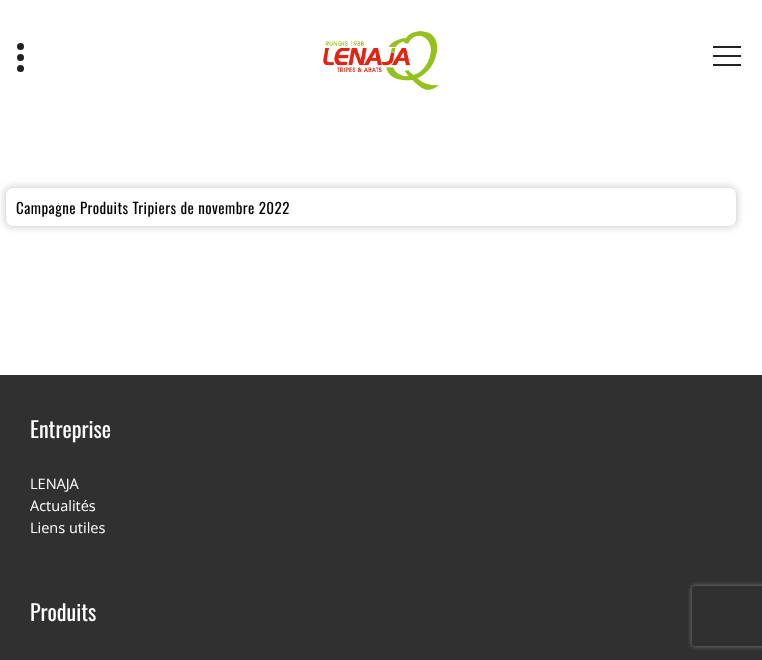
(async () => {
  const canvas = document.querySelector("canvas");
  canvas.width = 762;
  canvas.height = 660;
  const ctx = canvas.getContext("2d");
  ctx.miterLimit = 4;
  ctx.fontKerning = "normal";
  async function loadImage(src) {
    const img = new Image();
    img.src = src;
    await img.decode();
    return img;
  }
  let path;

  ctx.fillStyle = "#ffffff";
  ctx.fillRect(0, 0, 762, 660);
  ctx.fillStyle = "#222222";
  ctx.beginPath();
  ctx.arc(20.5, 57.5, 3.5, 0, Math.PI * 2);
  ctx.fill();
  ctx.beginPath();
  ctx.arc(20.5, 46.5, 3.5, 0, Math.PI * 2);
  ctx.fill();
  ctx.beginPath();
  ctx.arc(20.5, 68.5, 3.5, 0, Math.PI * 2);
  ctx.fill();
  ctx.drawImage(await loadImage("img/1.png"), 323, 31, 116, 59);
  for (const [x, y, w, h, color] of [
    [713, 46, 28, 2, "#222222"],
    [713, 55, 28, 2, "#222222"],
    [713, 64, 28, 2, "#222222"],
  ]) {
    ctx.fillStyle = color;
    ctx.fillRect(x, y, w, h);
  }
  ctx.fillStyle = "rgba(191, 191, 191, 0.63)";
  ctx.filter = "blur(3.5px)";
  ctx.beginPath();
  ctx.roundRect(4, 186, 734, 42, 9);
  ctx.fill();
  ctx.filter = "none";
  ctx.fillStyle = "#ffffff";
  ctx.beginPath();
  ctx.roundRect(5, 187, 732, 40, 8);
  ctx.fill();
  ctx.beginPath();
  ctx.roundRect(5.5, 187.5, 731, 39, 7.5);
  ctx.strokeStyle = "rgba(170, 167, 167, 0.35)";
  ctx.stroke();
  ctx.fillStyle = "#303030";
  ctx.fillRect(0, 375, 762, 285);
  ctx.save();
  path = new Path2D("M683 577H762V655H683ZM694 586H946C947 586 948 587 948 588V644C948 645 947 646 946 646H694C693 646 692 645 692 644V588C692 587 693 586 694 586Z");
  ctx.clip(path, "evenodd");
  ctx.fillStyle = "#808080";
  ctx.filter = "blur(2.5px)";
  ctx.beginPath();
  ctx.roundRect(692, 586, 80, 60, 2);
  ctx.fill();
  ctx.filter = "none";
  ctx.restore();
  ctx.letterSpacing = "0.45px";
  ctx.font = "15px Oswald";
  ctx.fillStyle = "#000000";
  ctx.fillText("Campagne Produits Tripiers de novembre 2022", 16, 214);
  ctx.letterSpacing = "0px";
  ctx.font = "22px Oswald";
  ctx.fillStyle = "#ffffff";
  ctx.fillText("Entreprise", 30, 438);
  ctx.font = "14.5px Open Sans";
  for (const [text, x, y] of [
    ["LENAJA", 30, 489],
    ["Actualités", 30, 511],
    ["Liens utiles", 30, 533],
  ]) {
    ctx.fillText(text, x, y);
  }
  ctx.font = "22px Oswald";
  ctx.fillText("Produits", 30, 621);
})();
